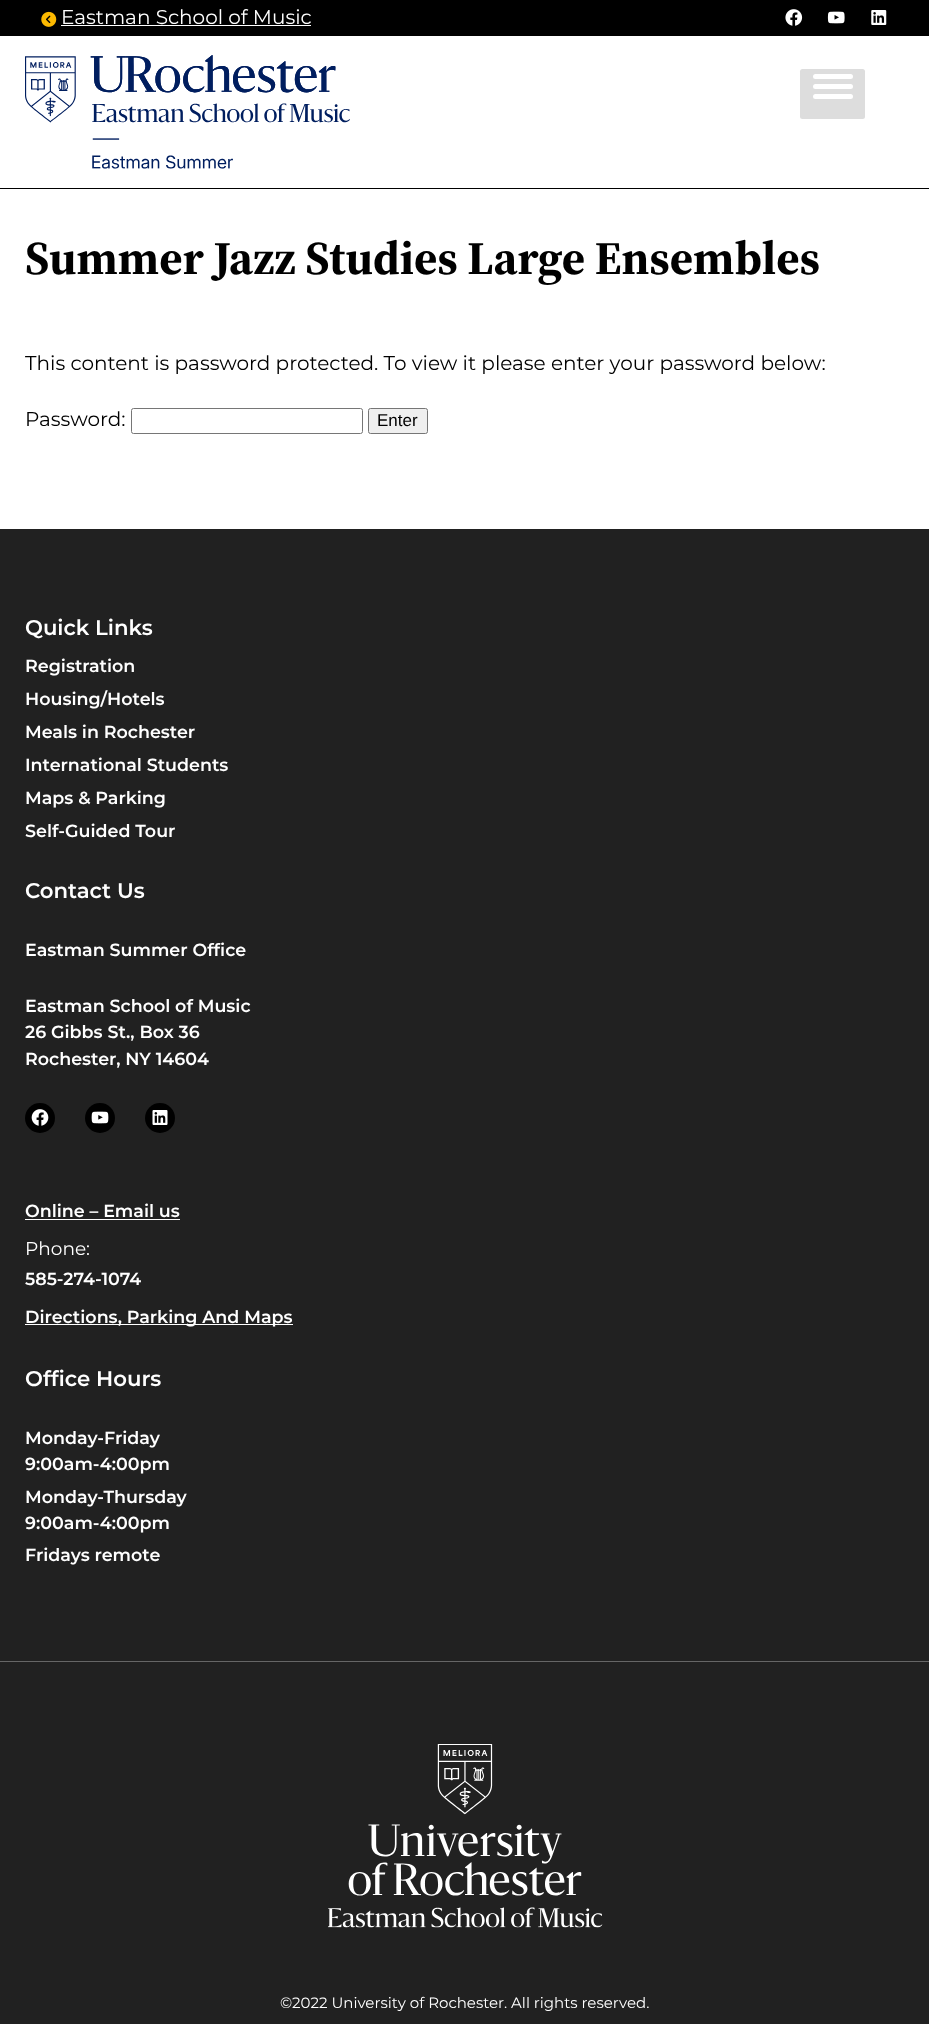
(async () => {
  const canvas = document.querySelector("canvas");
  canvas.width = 929;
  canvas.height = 2024;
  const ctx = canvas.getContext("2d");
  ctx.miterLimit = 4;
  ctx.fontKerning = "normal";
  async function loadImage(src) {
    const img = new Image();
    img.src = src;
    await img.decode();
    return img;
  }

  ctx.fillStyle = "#ffffff";
  ctx.fillRect(0, 0, 929, 2024);
  ctx.fillStyle = "#000000";
  ctx.fillRect(0, 0, 929, 36);
  ctx.drawImage(await loadImage("img/1.png"), 41, 11, 16, 16);
  ctx.fillStyle = "#ffffff";
  ctx.fillRect(61, 25, 250, 1);
  ctx.drawImage(await loadImage("img/2.png"), 785, 9, 18, 17);
  ctx.drawImage(await loadImage("img/3.png"), 827, 11, 18, 13);
  ctx.drawImage(await loadImage("img/4.png"), 871, 10, 16, 15);
  ctx.fillStyle = "#000000";
  ctx.fillRect(0, 188, 929, 1);
  ctx.drawImage(await loadImage("img/5.png"), 25, 55, 325, 114);
  ctx.fillStyle = "#dddddd";
  ctx.beginPath();
  ctx.roundRect(800, 69, 65, 50, 2.5);
  ctx.fill();
  ctx.fillStyle = "#ffffff";
  ctx.beginPath();
  ctx.roundRect(813, 74, 40, 5, 2.5);
  ctx.fill();
  ctx.beginPath();
  ctx.roundRect(813, 84, 40, 5, 2.5);
  ctx.fill();
  ctx.beginPath();
  ctx.roundRect(813, 94, 40, 5, 2.5);
  ctx.fill();
  ctx.beginPath();
  ctx.roundRect(131.5, 408.5, 231, 25, 2);
  ctx.strokeStyle = "#767676";
  ctx.stroke();
  ctx.fillStyle = "#efefef";
  ctx.beginPath();
  ctx.roundRect(368.5, 408.5, 59, 25, 2);
  ctx.fill();
  ctx.stroke();
  ctx.fillStyle = "#212121";
  ctx.fillRect(0, 529, 929, 1132);
  ctx.fillStyle = "#000000";
  ctx.beginPath();
  ctx.arc(40, 1118, 15, 0, Math.PI * 2);
  ctx.fill();
  ctx.drawImage(await loadImage("img/6.png"), 31, 1109, 18, 17);
  ctx.beginPath();
  ctx.arc(100, 1118, 15, 0, Math.PI * 2);
  ctx.fill();
  ctx.drawImage(await loadImage("img/7.png"), 91, 1111, 18, 13);
  ctx.beginPath();
  ctx.arc(160, 1118, 15, 0, Math.PI * 2);
  ctx.fill();
  ctx.drawImage(await loadImage("img/8.png"), 152, 1110, 16, 15);
  for (const [x, y, w, h, color] of [
    [25, 1219, 155, 1, "#ffffff"],
    [25, 1324, 268, 1, "#ffffff"],
    [0, 1662, 929, 362, "#212121"],
    [0, 1661, 929, 1, "#666666"],
  ]) {
    ctx.fillStyle = color;
    ctx.fillRect(x, y, w, h);
  }
  ctx.drawImage(await loadImage("img/9.png"), 328, 1744, 275, 184);
  ctx.font = "20px Montserrat";
  ctx.fillStyle = "#ffffff";
  ctx.fillText("Eastman School of Music", 61, 24);
  ctx.font = "bold 47px 'Source Serif 4'";
  ctx.fillStyle = "#000000";
  ctx.fillText("Summer Jazz Studies Large Ensembles", 25, 274);
  ctx.font = "20px Montserrat";
  ctx.fillText("This content is password protected. To view it please enter your password below:", 25, 370);
  ctx.fillText("Password:", 25, 426);
  ctx.font = "17px Liberation Sans";
  ctx.fillText("Enter", 377, 426);
  ctx.font = "600 21.25px Montserrat";
  ctx.fillStyle = "#ffffff";
  ctx.fillText("Quick Links", 25, 635);
  ctx.font = "600 17.5px Montserrat";
  for (const [text, x, y] of [
    ["Registration", 25, 672],
    ["Housing/Hotels", 25, 705],
    ["Meals in Rochester", 25, 738],
    ["International Students", 25, 771],
    ["Maps & Parking", 25, 804],
    ["Self-Guided Tour", 25, 837],
  ]) {
    ctx.fillText(text, x, y);
  }
  ctx.font = "600 21.25px Montserrat";
  ctx.fillText("Contact Us", 25, 898);
  ctx.font = "600 17.5px Montserrat";
  for (const [text, x, y] of [
    ["Eastman Summer Office", 25, 956],
    ["Eastman School of Music", 25, 1012],
    ["26 Gibbs St., Box 36", 25, 1038],
    ["Rochester, NY 14604", 25, 1065],
    ["Online – Email us", 25, 1217],
  ]) {
    ctx.fillText(text, x, y);
  }
  ctx.font = "18.5px Montserrat";
  ctx.fillText("Phone:", 25, 1255);
  ctx.font = "600 17.5px Montserrat";
  ctx.fillText("585-274-1074", 25, 1285);
  ctx.fillText("Directions, Parking And Maps", 25, 1323);
  ctx.font = "600 21.25px Montserrat";
  ctx.fillText("Office Hours", 25, 1386);
  ctx.font = "600 17.5px Montserrat";
  for (const [text, x, y] of [
    ["Monday-Friday", 25, 1444],
    ["9:00am-4:00pm", 25, 1470],
    ["Monday-Thursday", 25, 1503],
    ["9:00am-4:00pm", 25, 1529],
    ["Fridays remote", 25, 1561],
  ]) {
    ctx.fillText(text, x, y);
  }
  ctx.font = "15px Montserrat";
  ctx.fillText("©2022 University of Rochester. All rights reserved.", 280, 2008);
})();
